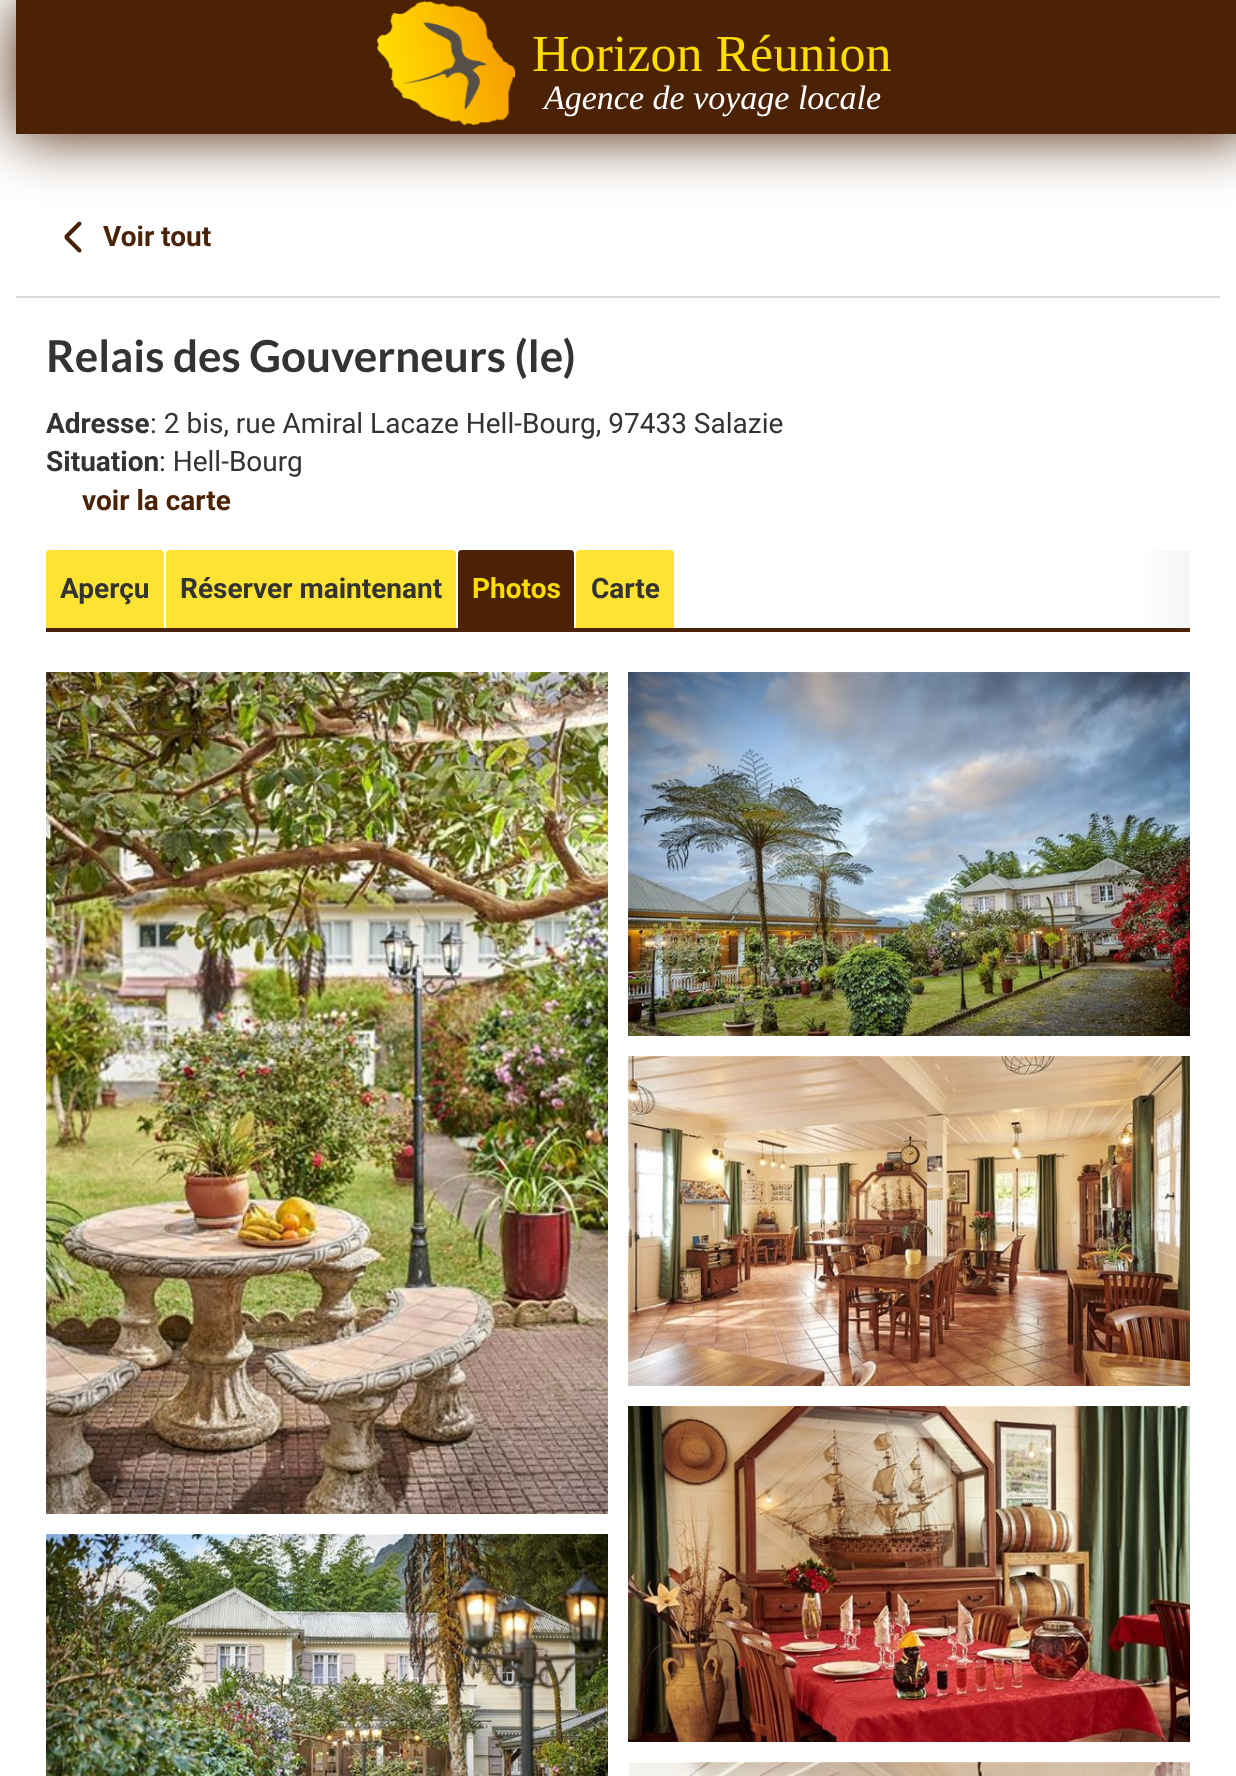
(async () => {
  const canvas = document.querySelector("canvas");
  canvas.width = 1236;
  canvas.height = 1776;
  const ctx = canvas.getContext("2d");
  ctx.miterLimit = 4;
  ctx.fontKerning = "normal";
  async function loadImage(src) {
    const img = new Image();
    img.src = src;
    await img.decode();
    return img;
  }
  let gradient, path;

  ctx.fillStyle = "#ffffff";
  ctx.fillRect(0, 0, 1236, 1776);
  ctx.fillStyle = "#4b2204";
  path = new Path2D("M65 235L78 222C78.5 221.5 80 221.5 81 222C81.5 223 81.5 224.5 81 225L68 238C67.5 238.5 66 238.5 65 238C64.5 237 64.5 235.5 65 235Z");
  ctx.fill(path);
  ctx.filter = "blur(30px)";
  ctx.beginPath();
  ctx.rect(16, 2, 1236, 134);
  ctx.fill();
  ctx.filter = "none";
  ctx.fillRect(16, 0, 1220, 134);
  ctx.drawImage(await loadImage("img/1.png"), 377, 1, 139, 125);
  ctx.fillStyle = "#d9d9d9";
  ctx.fillRect(16, 296, 1204, 2);
  ctx.fillStyle = "#4b2204";
  path = new Path2D("M68 236L81 249C81.5 249.5 81.5 251 81 252C80 252.5 78.5 252.5 78 252L65 239C64.5 238.5 64.5 237 65 236C66 235.5 67.5 235.5 68 236Z");
  ctx.fill(path);
  ctx.fillRect(164, 628, 1026, 4);
  ctx.fillStyle = "#ffe332";
  ctx.beginPath();
  ctx.roundRect(46, 550, 118, 82, [4, 4, 0, 0]);
  ctx.fill();
  ctx.fillStyle = "#4b2204";
  ctx.fillRect(46, 628, 118, 4);
  ctx.fillStyle = "#ffe332";
  ctx.beginPath();
  ctx.roundRect(166, 550, 290, 82, [4, 4, 0, 0]);
  ctx.fill();
  ctx.fillStyle = "#4b2204";
  ctx.fillRect(166, 628, 290, 4);
  ctx.beginPath();
  ctx.roundRect(458, 550, 116, 82, [4, 4, 0, 0]);
  ctx.fill();
  ctx.fillStyle = "#ffe332";
  ctx.beginPath();
  ctx.roundRect(576, 550, 98, 82, [4, 4, 0, 0]);
  ctx.fill();
  ctx.fillStyle = "#4b2204";
  ctx.fillRect(576, 628, 98, 4);
  gradient = ctx.createLinearGradient(1130, 589, 1190, 589);
  gradient.addColorStop(0, "#ffffff");
  gradient.addColorStop(1, "#f5f5f5");
  ctx.fillStyle = gradient;
  ctx.fillRect(1145, 550, 45, 78);
  ctx.drawImage(await loadImage("img/2.png"), 46, 672, 562, 842);
  ctx.drawImage(await loadImage("img/3.png"), 628, 672, 562, 364);
  ctx.drawImage(await loadImage("img/4.png"), 628, 1056, 562, 330);
  ctx.drawImage(await loadImage("img/5.png"), 46, 1534, 562, 242);
  ctx.drawImage(await loadImage("img/6.png"), 628, 1406, 562, 336);
  ctx.drawImage(await loadImage("img/7.png"), 628, 1762, 562, 14);
  ctx.font = "52px Liberation Serif";
  ctx.fillStyle = "#ffdd00";
  ctx.fillText("Horizon Réunion", 532, 71);
  ctx.font = "italic 34px Liberation Serif";
  ctx.fillStyle = "#ffffff";
  ctx.fillText("Agence de voyage locale", 544, 109);
  ctx.font = "bold 28px Roboto";
  ctx.fillStyle = "#4b2204";
  ctx.fillText("Voir tout", 103, 246);
  ctx.font = "bold 44px Lato";
  ctx.fillStyle = "#333333";
  ctx.fillText("Relais des Gouverneurs (le)", 46, 372);
  ctx.font = "bold 28px Roboto";
  ctx.fillText("Adresse", 46, 433);
  ctx.font = "28px Roboto";
  ctx.fillText(": 2 bis, rue Amiral Lacaze Hell-Bourg, 97433 Salazie", 150, 433);
  ctx.font = "bold 28px Roboto";
  ctx.fillText("Situation", 46, 471);
  ctx.font = "28px Roboto";
  ctx.fillText(": Hell-Bourg", 159, 471);
  ctx.font = "bold 28px Roboto";
  ctx.fillStyle = "#4b2204";
  ctx.fillText("voir la carte", 82, 510);
  ctx.fillStyle = "#333333";
  ctx.fillText("Aperçu", 60, 598);
  ctx.fillText("Réserver maintenant", 180, 598);
  ctx.fillStyle = "#ffdd00";
  ctx.fillText("Photos", 472, 598);
  ctx.fillStyle = "#333333";
  ctx.fillText("Carte", 591, 598);
})();
